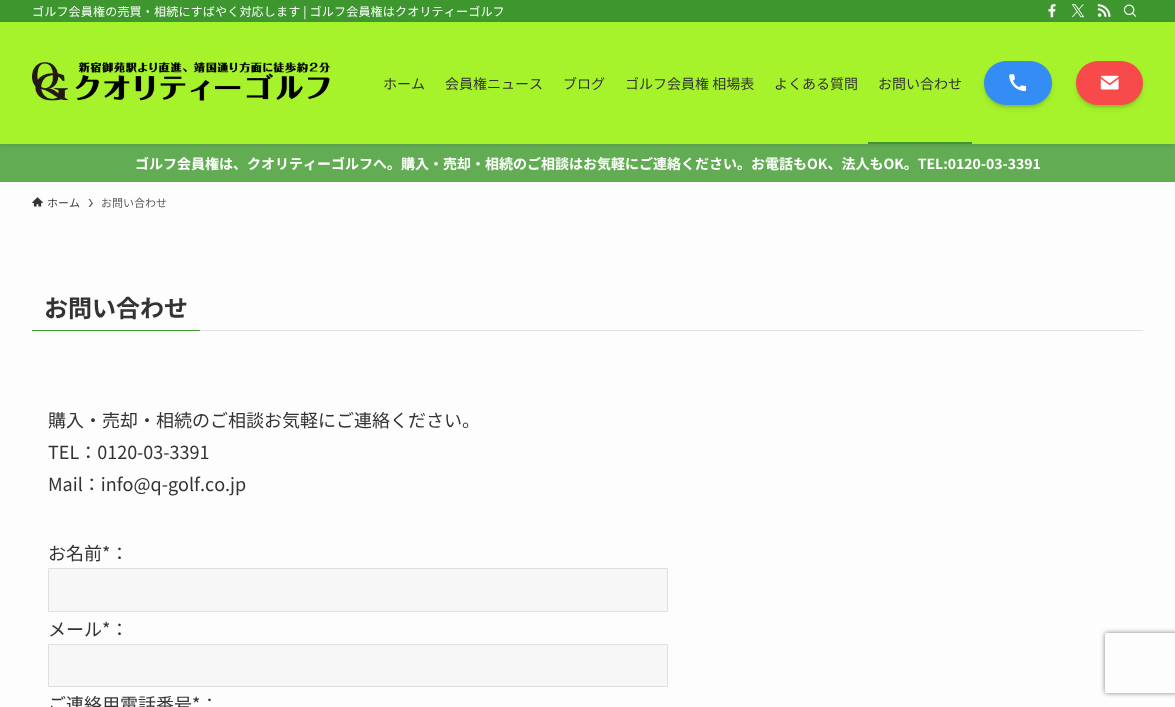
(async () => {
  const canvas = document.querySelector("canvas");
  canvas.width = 1175;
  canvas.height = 707;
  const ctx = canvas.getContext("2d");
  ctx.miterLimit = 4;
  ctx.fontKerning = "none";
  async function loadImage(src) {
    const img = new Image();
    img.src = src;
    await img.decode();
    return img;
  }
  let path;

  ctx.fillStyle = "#fdfdfd";
  ctx.fillRect(0, 0, 1175, 707);
  ctx.fillStyle = "#62ad54";
  ctx.fillRect(0, 144, 1175, 38);
  ctx.fillStyle = "rgba(0, 0, 0, 0.12)";
  ctx.filter = "blur(2px)";
  ctx.beginPath();
  ctx.rect(0, 1, 1175, 144);
  ctx.fill();
  ctx.filter = "none";
  ctx.fillStyle = "#a6f22b";
  ctx.fillRect(0, 22, 1175, 122);
  ctx.fillStyle = "#3e962e";
  ctx.fillRect(0, 0, 1175, 22);
  ctx.drawImage(await loadImage("img/1.png"), 1048, 4, 8, 14);
  ctx.drawImage(await loadImage("img/2.png"), 1071, 4, 14, 14);
  ctx.drawImage(await loadImage("img/3.png"), 1097, 4, 14, 13);
  ctx.drawImage(await loadImage("img/4.png"), 1123, 4, 14, 13);
  ctx.drawImage(await loadImage("img/5.png"), 32, 62, 298, 39);
  ctx.fillRect(868, 142, 104, 2);
  ctx.fillStyle = "rgba(0, 0, 0, 0.2)";
  ctx.filter = "blur(4px)";
  ctx.beginPath();
  ctx.roundRect(988, 69, 60, 36, 18);
  ctx.fill();
  ctx.filter = "none";
  ctx.fillStyle = "rgba(0, 0, 0, 0.1)";
  ctx.filter = "blur(1px)";
  ctx.beginPath();
  ctx.roundRect(984, 63, 68, 44, 22);
  ctx.fill();
  ctx.filter = "none";
  ctx.fillStyle = "#338df4";
  ctx.beginPath();
  ctx.roundRect(984, 61, 68, 44, 22);
  ctx.fill();
  ctx.drawImage(await loadImage("img/6.png"), 1009, 74, 18, 18);
  ctx.fillStyle = "rgba(0, 0, 0, 0.2)";
  ctx.filter = "blur(4px)";
  ctx.beginPath();
  ctx.roundRect(1080, 69, 59, 36, 18);
  ctx.fill();
  ctx.filter = "none";
  ctx.fillStyle = "rgba(0, 0, 0, 0.1)";
  ctx.filter = "blur(1px)";
  ctx.beginPath();
  ctx.roundRect(1076, 63, 67, 44, 22);
  ctx.fill();
  ctx.filter = "none";
  ctx.fillStyle = "#f74a4a";
  ctx.beginPath();
  ctx.roundRect(1076, 61, 67, 44, 22);
  ctx.fill();
  ctx.drawImage(await loadImage("img/7.png"), 1100, 75, 19, 15);
  ctx.drawImage(await loadImage("img/8.png"), 32, 197, 11, 10);
  ctx.fillStyle = "#5b5b5b";
  path = new Path2D("M90 199H88.5L91.5 203L88.5 207H90L93 203.5Z");
  ctx.fill(path);
  ctx.fillStyle = "#e2e2e2";
  ctx.fillRect(200, 330, 943, 1);
  ctx.fillStyle = "#3e962e";
  ctx.fillRect(32, 330, 168, 1);
  ctx.fillStyle = "#f7f7f7";
  ctx.beginPath();
  ctx.rect(48.5, 568.5, 619, 43);
  ctx.fill();
  ctx.strokeStyle = "#dfdfdf";
  ctx.stroke();
  ctx.beginPath();
  ctx.rect(48.5, 644.5, 619, 42);
  ctx.fill();
  ctx.stroke();
  ctx.save();
  path = new Path2D("M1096 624H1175V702H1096ZM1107 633H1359C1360 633 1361 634 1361 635V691C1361 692 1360 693 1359 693H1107C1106 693 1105 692 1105 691V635C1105 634 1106 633 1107 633Z");
  ctx.clip(path, "evenodd");
  ctx.fillStyle = "#808080";
  ctx.filter = "blur(2.5px)";
  ctx.beginPath();
  ctx.roundRect(1105, 633, 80, 60, 2);
  ctx.fill();
  ctx.filter = "none";
  ctx.restore();
  ctx.letterSpacing = "0.2px";
  ctx.font = "12px Noto Sans JP";
  ctx.fillStyle = "#ffffff";
  ctx.fillText("ゴルフ会員権の売買・相続にすばやく対応します | ゴルフ会員権はクオリティーゴルフ", 32, 16);
  ctx.letterSpacing = "0px";
  ctx.font = "14px Noto Sans JP";
  ctx.fillStyle = "#333333";
  for (const [text, x, y] of [
    ["ホーム", 383, 89],
    ["会員権ニュース", 445, 89],
    ["ブログ", 563, 89],
    ["ゴルフ会員権 相場表", 625, 89],
    ["よくある質問", 774, 89],
    ["お問い合わせ", 878, 89],
  ]) {
    ctx.fillText(text, x, y);
  }
  ctx.font = "bold 14px Noto Sans JP";
  ctx.fillStyle = "#ffffff";
  ctx.fillText("ゴルフ会員権は、クオリティーゴルフへ。購入・売却・相続のご相談はお気軽にご連絡ください。お電話もOK、法人もOK。TEL:0120-03-3391", 135, 169);
  ctx.font = "11px Noto Sans JP";
  ctx.fillStyle = "#333333";
  ctx.fillText("ホーム", 47, 207);
  ctx.fillStyle = "#5b5b5b";
  ctx.fillText("お問い合わせ", 101, 207);
  ctx.font = "bold 24px Noto Sans JP";
  ctx.fillStyle = "#333333";
  ctx.fillText("お問い合わせ", 44, 317);
  ctx.font = "18px Noto Sans JP";
  for (const [text, x, y] of [
    ["購入・売却・相続のご相談お気軽にご連絡ください。", 48, 427],
    ["TEL：0120-03-3391", 48, 459],
    ["Mail：info@q-golf.co.jp", 48, 491],
    ["お名前*：", 48, 560],
    ["メール*：", 48, 636],
    ["ご連絡用電話番号*：", 48, 711],
  ]) {
    ctx.fillText(text, x, y);
  }
})();
